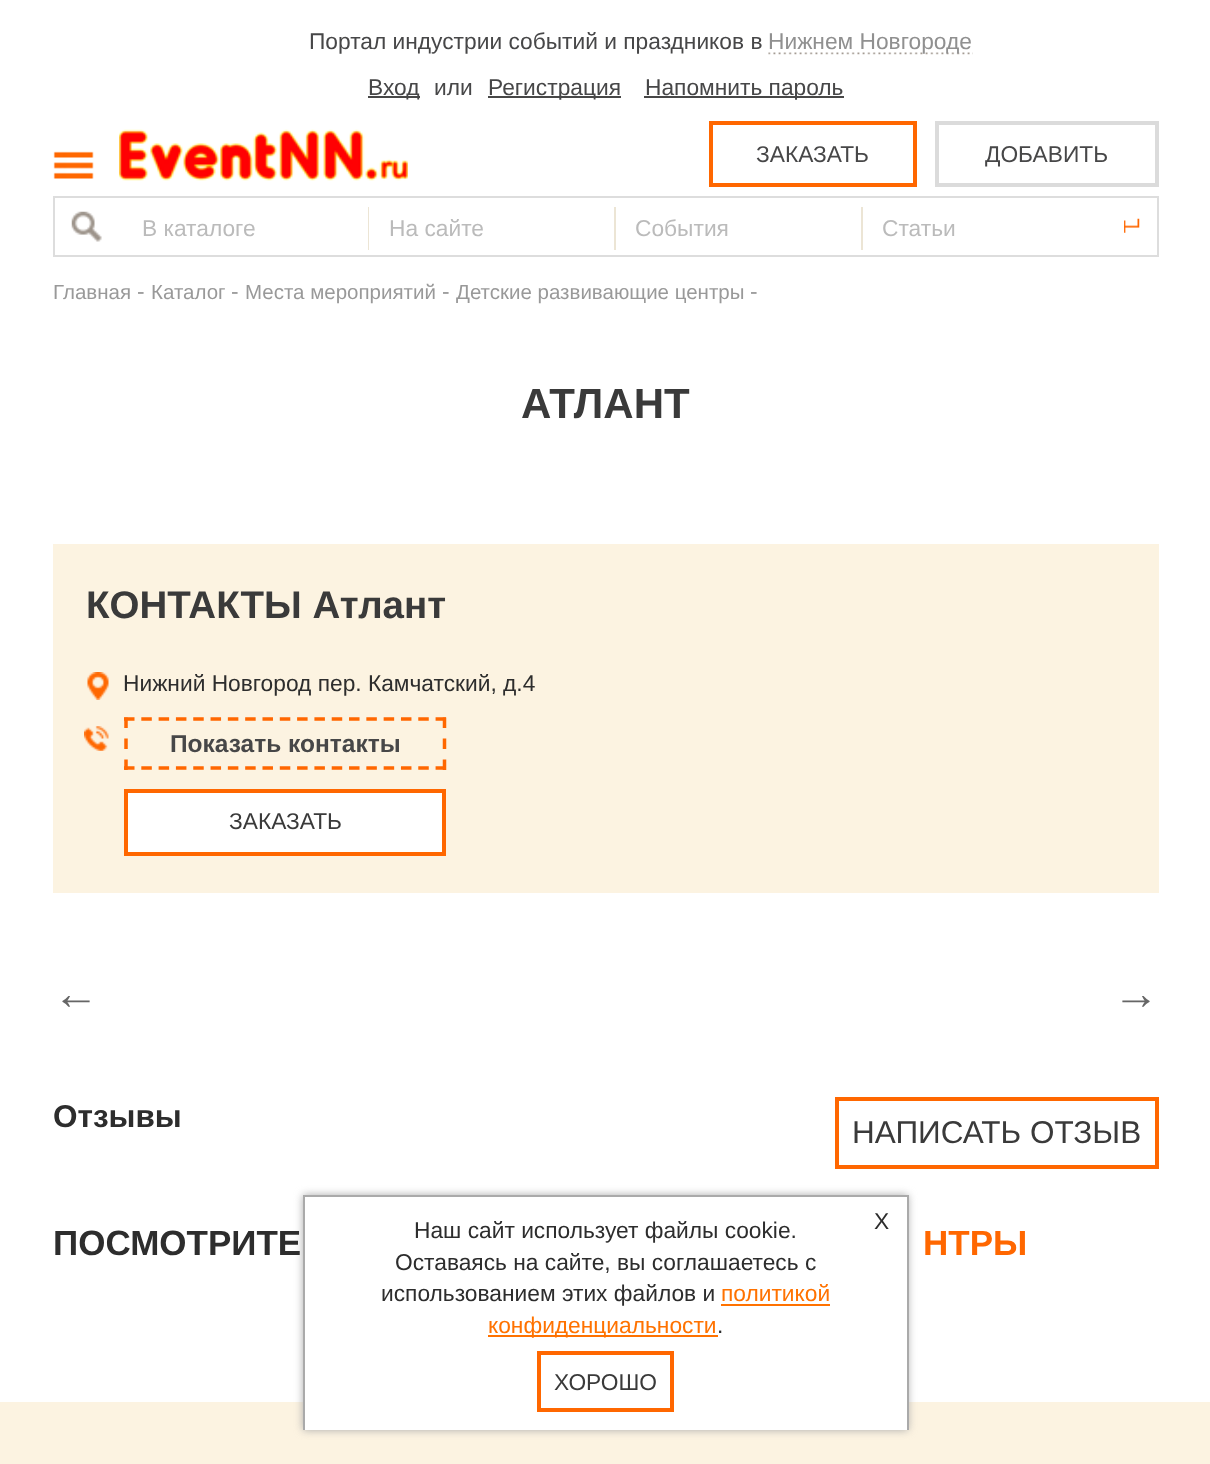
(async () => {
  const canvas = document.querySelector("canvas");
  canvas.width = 1210;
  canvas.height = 1464;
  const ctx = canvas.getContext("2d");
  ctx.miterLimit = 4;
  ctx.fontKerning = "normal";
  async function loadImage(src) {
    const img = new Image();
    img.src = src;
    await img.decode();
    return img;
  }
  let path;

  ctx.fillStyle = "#ffffff";
  ctx.fillRect(0, 0, 1210, 1464);
  ctx.drawImage(await loadImage("img/1.png"), 768, 52, 205, 3);
  for (const [x, y, w, h, color] of [
    [368, 96, 52, 2, "#474747"],
    [488, 96, 133, 2, "#474747"],
    [644, 96, 200, 2, "#474747"],
  ]) {
    ctx.fillStyle = color;
    ctx.fillRect(x, y, w, h);
  }
  ctx.drawImage(await loadImage("img/2.png"), 53, 151, 41, 28);
  ctx.drawImage(await loadImage("img/3.png"), 119, 129, 289, 52);
  ctx.strokeStyle = "#ff6700";
  ctx.lineWidth = 4;
  ctx.strokeRect(711, 123, 204, 62);
  ctx.strokeStyle = "#dbdbdb";
  ctx.strokeRect(937, 123, 220, 62);
  ctx.strokeStyle = "#dddddd";
  ctx.lineWidth = 2;
  ctx.strokeRect(54, 197, 1104, 59);
  ctx.drawImage(await loadImage("img/4.png"), 71, 211, 31, 31);
  for (const [x, y, w, h, color] of [
    [368, 207, 1, 43, "#ece5d5"],
    [614, 207, 2, 43, "#ece5d5"],
    [861, 207, 2, 43, "#ece5d5"],
  ]) {
    ctx.fillStyle = color;
    ctx.fillRect(x, y, w, h);
  }
  ctx.drawImage(await loadImage("img/5.png"), 1124, 218, 16, 15);
  ctx.fillStyle = "#fcf3e1";
  ctx.fillRect(53, 544, 1106, 349);
  ctx.drawImage(await loadImage("img/6.png"), 87, 672, 22, 28);
  path = new Path2D("M124 719H446");
  ctx.strokeStyle = "#ff6700";
  ctx.lineWidth = 3.5;
  ctx.setLineDash([10.5, 6.81]);
  ctx.stroke(path);
  path = new Path2D("M444.5 717.5V728M444.5 738.5V749M444.5 759.5V770");
  ctx.setLineDash([]);
  ctx.stroke(path);
  path = new Path2D("M124 768H446");
  ctx.setLineDash([10.5, 6.81]);
  ctx.stroke(path);
  path = new Path2D("M126 717.5V728M126 738.5V749M126 759.5V770");
  ctx.setLineDash([]);
  ctx.stroke(path);
  ctx.drawImage(await loadImage("img/7.png"), 84, 726, 25, 25);
  ctx.fillStyle = "#ffffff";
  ctx.beginPath();
  ctx.rect(126, 791, 318, 63);
  ctx.fill();
  ctx.lineWidth = 4;
  ctx.stroke();
  ctx.strokeRect(837, 1099, 320, 68);
  ctx.fillStyle = "#fcf3e1";
  ctx.fillRect(0, 1402, 1210, 62);
  ctx.fillStyle = "#aaaaaa";
  ctx.filter = "blur(4.5px)";
  ctx.beginPath();
  ctx.rect(303, 1195, 605, 235);
  ctx.fill();
  ctx.filter = "none";
  for (const [x, y, w, h, color] of [
    [305, 1197, 602, 233, "#ffffff"],
    [303, 1195, 605, 2, "#aaaaaa"],
    [907, 1195, 2, 235, "#aaaaaa"],
    [303, 1195, 2, 235, "#aaaaaa"],
    [721, 1304, 109, 2, "#ff7200"],
    [488, 1335, 230, 2, "#ff7200"],
  ]) {
    ctx.fillStyle = color;
    ctx.fillRect(x, y, w, h);
  }
  ctx.strokeRect(539, 1353, 133, 57);
  ctx.font = "22.75px Liberation Sans";
  ctx.fillStyle = "#474748";
  ctx.fillText("Портал индустрии событий и праздников в", 309, 49);
  ctx.fillStyle = "#909090";
  ctx.fillText("Нижнем Новгороде", 768, 49);
  ctx.fillStyle = "#474748";
  for (const [text, x, y] of [
    ["Вход", 368, 95],
    ["или", 434, 95],
    ["Регистрация", 488, 95],
    ["Напомнить пароль", 645, 95],
    ["ЗАКАЗАТЬ", 756, 162],
    ["ДОБАВИТЬ", 985, 162],
  ]) {
    ctx.fillText(text, x, y);
  }
  ctx.fillStyle = "#bbbbbb";
  for (const [text, x, y] of [
    ["В каталоге", 142, 236],
    ["На сайте", 389, 236],
    ["События", 635, 236],
    ["Статьи", 882, 236],
  ]) {
    ctx.fillText(text, x, y);
  }
  ctx.font = "20.5px Liberation Sans";
  ctx.fillStyle = "#999999";
  ctx.fillText("Главная", 53, 299);
  ctx.font = "22.75px Liberation Sans";
  ctx.fillText("-", 137, 299);
  ctx.font = "20.5px Liberation Sans";
  ctx.fillText("Каталог", 151, 299);
  ctx.font = "22.75px Liberation Sans";
  ctx.fillText("-", 231, 299);
  ctx.font = "20.5px Liberation Sans";
  ctx.fillText("Места мероприятий", 245, 299);
  ctx.font = "22.75px Liberation Sans";
  ctx.fillText("-", 442, 299);
  ctx.font = "20.5px Liberation Sans";
  ctx.fillText("Детские развивающие центры", 456, 299);
  ctx.font = "22.75px Liberation Sans";
  ctx.fillText("-", 750, 299);
  ctx.font = "bold 42px Liberation Sans";
  ctx.fillStyle = "#3a3a3a";
  ctx.fillText("АТЛАНТ", 521, 418);
  ctx.font = "bold 38.5px Liberation Sans";
  ctx.fillText("КОНТАКТЫ Атлант", 86, 618);
  ctx.font = "22.75px Liberation Sans";
  ctx.fillStyle = "#2d2d2d";
  ctx.fillText("Нижний Новгород пер. Камчатский, д.4", 123, 691);
  ctx.font = "bold 24.5px Liberation Sans";
  ctx.fillStyle = "#474748";
  ctx.fillText("Показать контакты", 170, 752);
  ctx.font = "22.75px Liberation Sans";
  ctx.fillStyle = "#3a3a3a";
  ctx.fillText("ЗАКАЗАТЬ", 229, 829);
  ctx.font = "46px Liberation Sans";
  ctx.fillStyle = "#666666";
  ctx.fillText("←", 53, 1009);
  ctx.fillText("→", 1113, 1009);
  ctx.font = "bold 31.5px Liberation Sans";
  ctx.fillStyle = "#2d2d2d";
  ctx.fillText("Отзывы", 53, 1127);
  ctx.font = "31.5px Liberation Sans";
  ctx.fillStyle = "#3a3a3a";
  ctx.fillText("НАПИСАТЬ ОТЗЫВ", 852, 1143);
  ctx.font = "bold 35px Liberation Sans";
  ctx.fillStyle = "#2d2d2d";
  ctx.fillText("ПОСМОТРИТЕ", 53, 1255);
  ctx.fillStyle = "#ff6700";
  ctx.fillText("НТРЫ", 923, 1255);
  ctx.font = "22.75px Liberation Sans";
  ctx.fillStyle = "#2d2d2d";
  for (const [text, x, y] of [
    ["Наш сайт использует файлы cookie.", 414, 1238],
    ["Оставаясь на сайте, вы соглашаетесь с", 395, 1270],
    ["использованием этих файлов и", 381, 1301],
  ]) {
    ctx.fillText(text, x, y);
  }
  ctx.fillStyle = "#ff7200";
  ctx.fillText("политикой", 721, 1301);
  ctx.fillText("конфиденциальности", 488, 1333);
  ctx.fillStyle = "#2d2d2d";
  ctx.fillText(".", 717, 1333);
  ctx.fillText("X", 874, 1229);
  ctx.fillStyle = "#3a3a3a";
  ctx.fillText("ХОРОШО", 554, 1390);
})();
